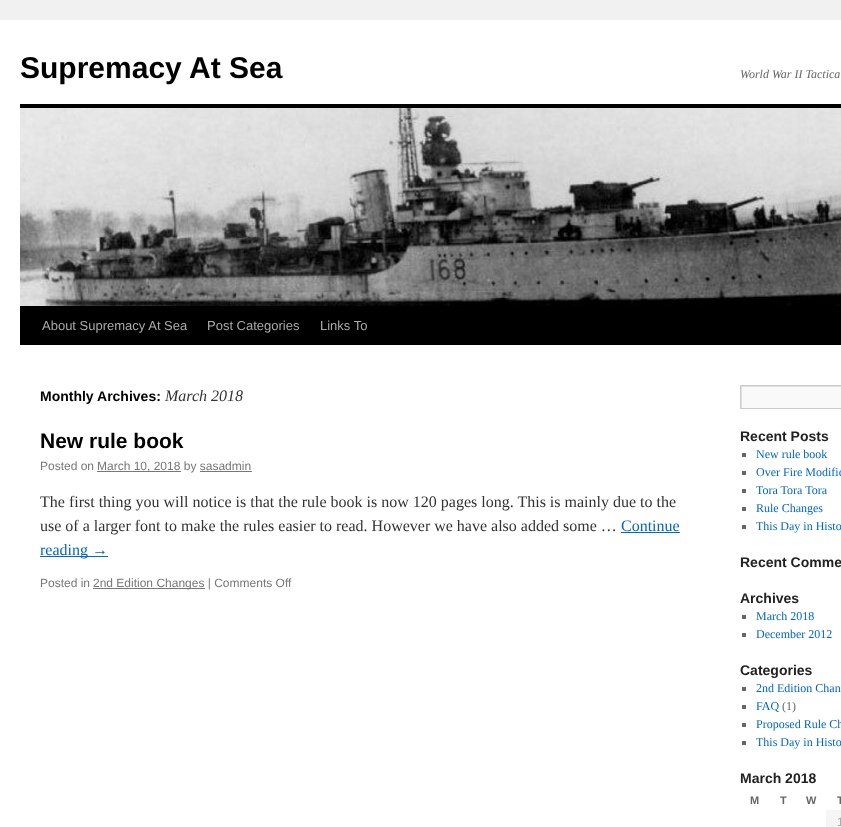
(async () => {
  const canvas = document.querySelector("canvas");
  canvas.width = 841;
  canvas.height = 827;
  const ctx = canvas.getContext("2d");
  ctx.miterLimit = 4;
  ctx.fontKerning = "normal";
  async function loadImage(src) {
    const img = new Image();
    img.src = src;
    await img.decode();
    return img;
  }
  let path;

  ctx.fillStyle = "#f1f1f1";
  ctx.fillRect(0, 0, 841, 827);
  for (const [x, y, w, h, color] of [
    [0, 20, 841, 807, "#ffffff"],
    [20, 104, 821, 4, "#000000"],
    [20, 306, 821, 39, "#000000"],
  ]) {
    ctx.fillStyle = color;
    ctx.fillRect(x, y, w, h);
  }
  ctx.drawImage(await loadImage("img/1.png"), 20, 108, 821, 198);
  for (const [x, y, w, h, color] of [
    [97, 471, 84, 1, "#777777"],
    [200, 471, 52, 1, "#777777"],
    [621, 532, 59, 1, "#0066cc"],
    [40, 556, 68, 1, "#0066cc"],
    [93, 588, 112, 1, "#777777"],
    [742, 387, 99, 21, "#f9f9f9"],
  ]) {
    ctx.fillStyle = color;
    ctx.fillRect(x, y, w, h);
  }
  ctx.save();
  ctx.beginPath();
  ctx.rect(741, 386, 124, 22);
  ctx.clip();
  ctx.fillStyle = "#e0e0e0";
  path = new Path2D("M642 287H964V507H642ZM742 387H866V409H742Z");
  ctx.fill(path, "evenodd");
  ctx.restore();
  ctx.strokeStyle = "#cccccc";
  ctx.strokeRect(740.5, 385.5, 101, 23);
  for (const [x, y, w, h, color] of [
    [742, 453, 4, 4, "#666666"],
    [742, 471, 4, 4, "#666666"],
    [742, 489, 4, 4, "#666666"],
    [742, 507, 4, 4, "#666666"],
    [742, 525, 4, 4, "#666666"],
    [742, 615, 4, 4, "#666666"],
    [742, 633, 4, 4, "#666666"],
    [742, 687, 4, 4, "#666666"],
    [742, 705, 4, 4, "#666666"],
    [742, 723, 4, 4, "#666666"],
    [742, 741, 4, 4, "#666666"],
    [826, 810, 15, 17, "#f5f5f5"],
  ]) {
    ctx.fillStyle = color;
    ctx.fillRect(x, y, w, h);
  }
  ctx.font = "bold 30px Liberation Sans";
  ctx.fillStyle = "#000000";
  ctx.fillText("Supremacy At Sea", 20, 78);
  ctx.font = "italic 12px Liberation Serif";
  ctx.fillStyle = "#666666";
  ctx.fillText("World War II Tactica", 740, 78);
  ctx.font = "13px Liberation Sans";
  ctx.fillStyle = "#aaaaaa";
  for (const [text, x, y] of [
    ["About Supremacy At Sea", 42, 330],
    ["Post Categories", 207, 330],
    ["Links To", 320, 330],
  ]) {
    ctx.fillText(text, x, y);
  }
  ctx.font = "bold 14px Liberation Sans";
  ctx.fillStyle = "#000000";
  ctx.fillText("Monthly Archives:", 40, 401);
  ctx.font = "italic 16px Liberation Serif";
  ctx.fillStyle = "#333333";
  ctx.fillText("March 2018", 165, 401);
  ctx.font = "bold 21px Liberation Sans";
  ctx.fillStyle = "#000000";
  ctx.fillText("New rule book", 40, 448);
  ctx.font = "12px Liberation Sans";
  ctx.fillStyle = "#777777";
  ctx.fillText("Posted on", 40, 470);
  ctx.fillText("March 10, 2018 by sasadmin", 97, 470);
  ctx.font = "16px Liberation Serif";
  ctx.fillStyle = "#333333";
  ctx.fillText("The first thing you will notice is that the rule book is now 120 pages long. This is mainly due to the", 40, 507);
  ctx.fillText("use of a larger font to make the rules easier to read. However we have also added some …", 40, 531);
  ctx.fillStyle = "#0066cc";
  ctx.fillText("Continue", 621, 531);
  ctx.fillText("reading →", 40, 555);
  ctx.font = "12px Liberation Sans";
  ctx.fillStyle = "#777777";
  ctx.fillText("Posted in", 40, 587);
  ctx.fillText("2nd Edition Changes | Comments Off", 93, 587);
  ctx.font = "bold 14px Liberation Sans";
  ctx.fillStyle = "#222222";
  ctx.fillText("Recent Posts", 740, 441);
  ctx.font = "12px Liberation Serif";
  ctx.fillStyle = "#0066cc";
  for (const [text, x, y] of [
    ["New rule book", 756, 458],
    ["Over Fire Modific", 756, 476],
    ["Tora Tora Tora", 756, 494],
    ["Rule Changes", 756, 512],
    ["This Day in Histo", 756, 530],
  ]) {
    ctx.fillText(text, x, y);
  }
  ctx.font = "bold 14px Liberation Sans";
  ctx.fillStyle = "#222222";
  ctx.fillText("Recent Comme", 740, 567);
  ctx.fillText("Archives", 740, 603);
  ctx.font = "12px Liberation Serif";
  ctx.fillStyle = "#0066cc";
  ctx.fillText("March 2018", 756, 620);
  ctx.fillText("December 2012", 756, 638);
  ctx.font = "bold 14px Liberation Sans";
  ctx.fillStyle = "#222222";
  ctx.fillText("Categories", 740, 675);
  ctx.font = "12px Liberation Serif";
  ctx.fillStyle = "#0066cc";
  ctx.fillText("2nd Edition Chan", 756, 692);
  ctx.fillText("FAQ", 756, 710);
  ctx.fillStyle = "#666666";
  ctx.fillText("(1)", 782, 710);
  ctx.fillStyle = "#0066cc";
  ctx.fillText("Proposed Rule Ch", 756, 728);
  ctx.fillText("This Day in Histo", 756, 746);
  ctx.font = "bold 14px Liberation Sans";
  ctx.fillStyle = "#222222";
  ctx.fillText("March 2018", 740, 783);
  ctx.font = "bold 11px Liberation Sans";
  ctx.fillStyle = "#666666";
  for (const [text, x, y] of [
    ["M", 750, 804],
    ["T", 780, 804],
    ["W", 806, 804],
    ["T", 837, 804],
  ]) {
    ctx.fillText(text, x, y);
  }
  ctx.font = "12px Liberation Sans";
  ctx.fillStyle = "#aaaaaa";
  ctx.fillText("1", 837, 826);
})();
